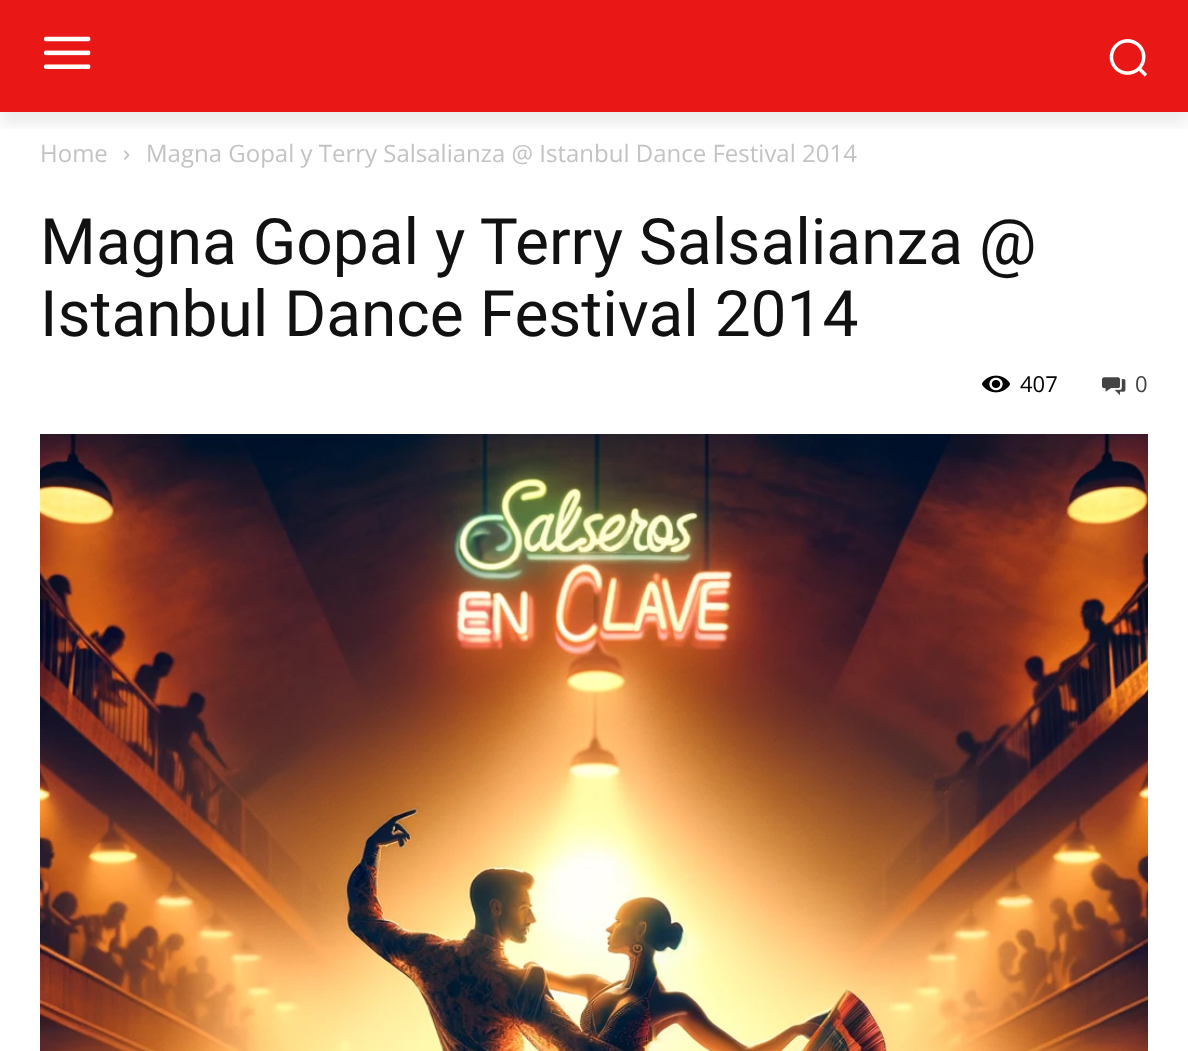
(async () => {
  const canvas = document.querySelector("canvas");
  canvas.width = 1188;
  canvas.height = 1051;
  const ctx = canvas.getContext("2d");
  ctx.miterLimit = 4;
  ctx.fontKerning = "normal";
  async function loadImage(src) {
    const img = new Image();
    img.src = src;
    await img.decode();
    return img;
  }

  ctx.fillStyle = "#ffffff";
  ctx.fillRect(0, 0, 1188, 1051);
  ctx.fillStyle = "#ea1717";
  ctx.fillRect(0, 0, 1188, 112);
  ctx.drawImage(await loadImage("img/1.png"), 44, 36, 47, 33);
  ctx.drawImage(await loadImage("img/2.png"), 1109, 39, 39, 38);
  ctx.save();
  ctx.beginPath();
  ctx.rect(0, 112, 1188, 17);
  ctx.clip();
  ctx.fillStyle = "rgba(0, 0, 0, 0.08)";
  ctx.filter = "blur(8px)";
  ctx.beginPath();
  ctx.rect(0, 12, 1188, 112);
  ctx.fill();
  ctx.filter = "none";
  ctx.restore();
  ctx.drawImage(await loadImage("img/3.png"), 124, 150, 6, 10);
  ctx.drawImage(await loadImage("img/4.png"), 982, 375, 28, 18);
  ctx.drawImage(await loadImage("img/5.png"), 1102, 377, 24, 19);
  ctx.drawImage(await loadImage("img/6.png"), 40, 434, 1108, 617);
  ctx.font = "24px Open Sans";
  ctx.fillStyle = "#c3c3c3";
  ctx.fillText("Home", 40, 162);
  ctx.fillText("Magna Gopal y Terry Salsalianza @ Istanbul Dance Festival 2014", 146, 162);
  ctx.font = "64px Roboto";
  ctx.fillStyle = "#111111";
  ctx.fillText("Magna Gopal y Terry Salsalianza @", 40, 264);
  ctx.fillText("Istanbul Dance Festival 2014", 40, 336);
  ctx.font = "22px Open Sans";
  ctx.fillStyle = "#000000";
  ctx.fillText("407", 1020, 392);
  ctx.fillStyle = "#444444";
  ctx.fillText("0", 1135, 392);
})();
